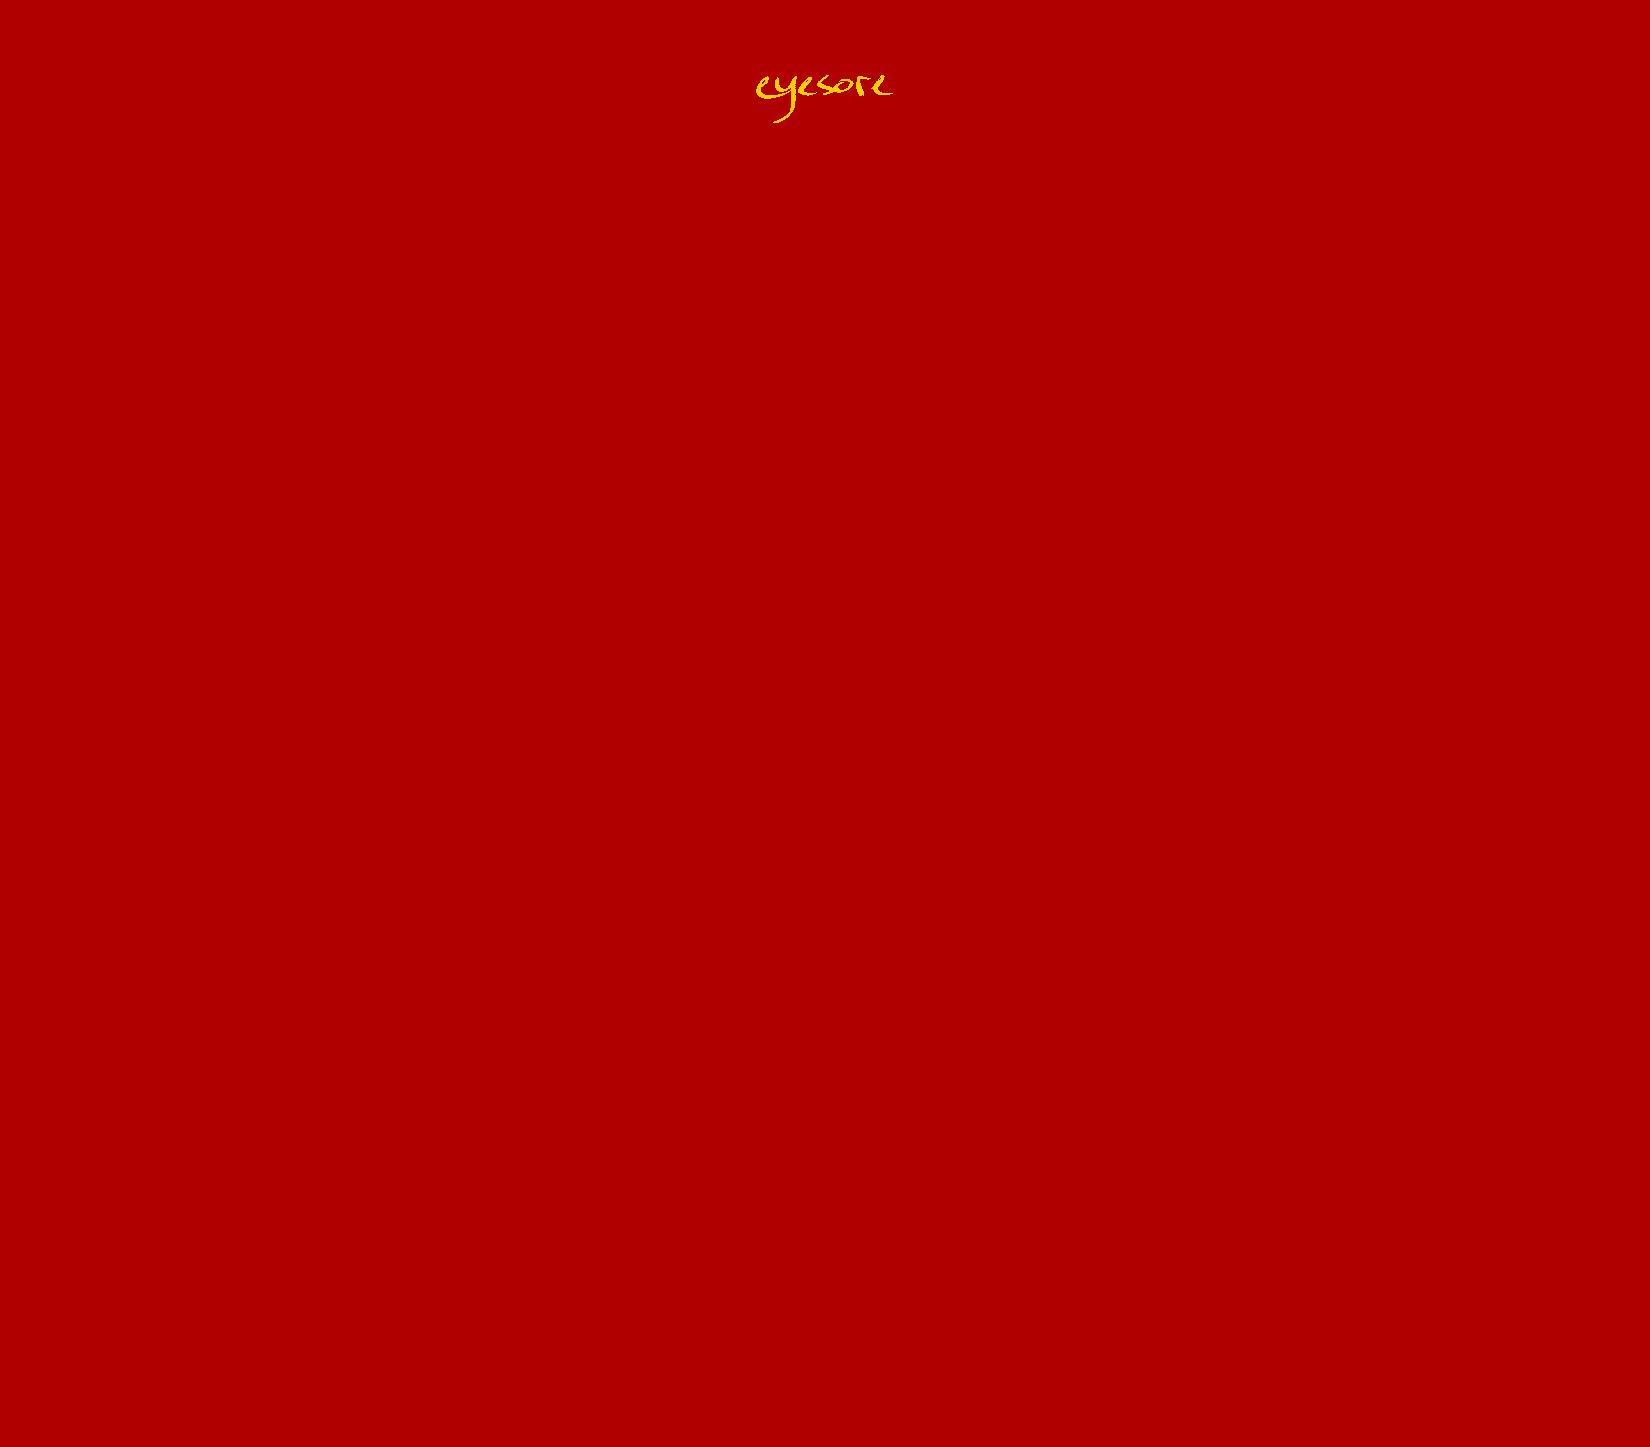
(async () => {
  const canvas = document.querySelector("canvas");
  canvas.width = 1650;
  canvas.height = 1447;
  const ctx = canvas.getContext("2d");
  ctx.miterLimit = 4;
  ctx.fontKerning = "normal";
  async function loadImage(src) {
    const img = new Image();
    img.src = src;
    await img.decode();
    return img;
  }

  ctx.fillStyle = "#b00000";
  ctx.fillRect(0, 0, 1650, 1447);
  ctx.drawImage(await loadImage("img/1.png"), 756, 75, 137, 48);
})();
